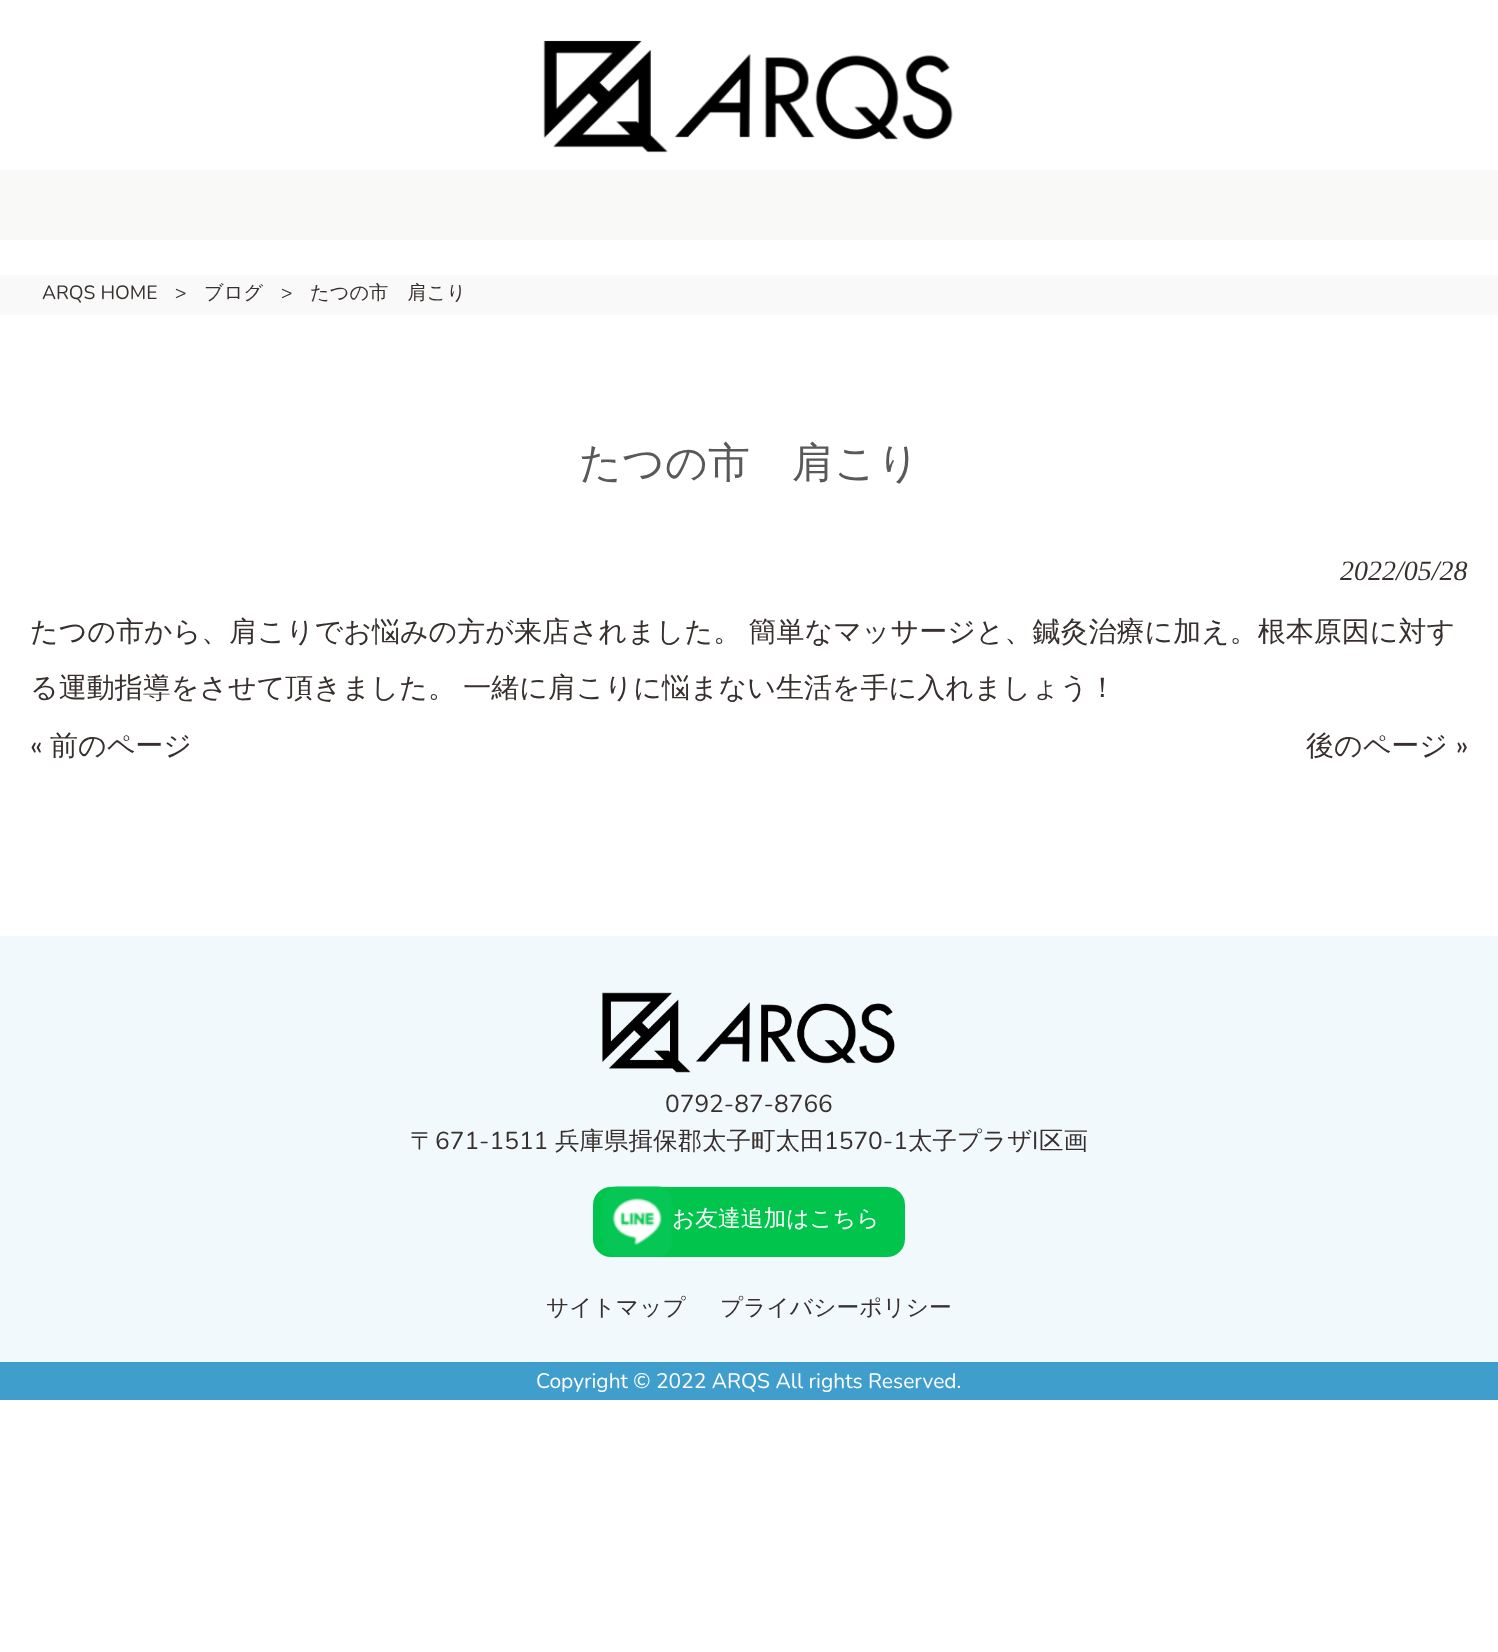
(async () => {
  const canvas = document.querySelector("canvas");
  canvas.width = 1498;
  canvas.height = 1652;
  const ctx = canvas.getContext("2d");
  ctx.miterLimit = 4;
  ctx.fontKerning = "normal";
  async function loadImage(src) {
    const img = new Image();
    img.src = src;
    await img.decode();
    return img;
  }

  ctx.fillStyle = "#ffffff";
  ctx.fillRect(0, 0, 1498, 1652);
  ctx.drawImage(await loadImage("img/1.png"), 543, 40, 410, 113);
  for (const [x, y, w, h, color] of [
    [0, 170, 1498, 70, "#f9f9f7"],
    [0, 275, 1498, 40, "#f9f9f9"],
    [0, 936, 1498, 426, "#f2f9fc"],
  ]) {
    ctx.fillStyle = color;
    ctx.fillRect(x, y, w, h);
  }
  ctx.drawImage(await loadImage("img/2.png"), 602, 992, 293, 81);
  ctx.fillStyle = "#00c44b";
  ctx.beginPath();
  ctx.roundRect(593, 1187, 312, 70, 18);
  ctx.fill();
  ctx.drawImage(await loadImage("img/3.png"), 602, 1186, 70, 71);
  ctx.fillStyle = "#409ecc";
  ctx.fillRect(0, 1362, 1498, 38);
  ctx.font = "200 19.25px Nunito";
  ctx.fillStyle = "#38302e";
  ctx.fillText("ARQS HOME", 42, 299);
  ctx.fillText(">", 175, 299);
  ctx.font = "500 19.25px WenQuanYi Zen Hei";
  ctx.fillText("ブログ", 204, 299);
  ctx.font = "200 19.25px Nunito";
  ctx.fillText(">", 281, 299);
  ctx.font = "500 19.25px WenQuanYi Zen Hei";
  ctx.fillText("たつの市　肩こり", 310, 299);
  ctx.font = "500 42px WenQuanYi Zen Hei";
  ctx.fillStyle = "#595959";
  ctx.fillText("たつの市　肩こり", 579, 477);
  ctx.font = "italic 28px Liberation Serif";
  ctx.fillStyle = "#38302e";
  ctx.fillText("2022/05/28", 1340, 580);
  ctx.wordSpacing = "-1px";
  ctx.font = "500 28px WenQuanYi Zen Hei";
  ctx.fillText("たつの市から、肩こりでお悩みの方が来店されました。 簡単なマッサージと、鍼灸治療に加え。根本原因に対す", 30, 641);
  ctx.fillText("る運動指導をさせて頂きました。 一緒に肩こりに悩まない生活を手に入れましょう！", 30, 697);
  ctx.wordSpacing = "0px";
  ctx.font = "200 28px Nunito";
  ctx.fillText("«", 30, 755);
  ctx.font = "500 28px WenQuanYi Zen Hei";
  ctx.fillText("前のページ", 50, 755);
  ctx.fillText("後のページ", 1306, 755);
  ctx.font = "200 28px Nunito";
  ctx.fillText("»", 1456, 755);
  ctx.font = "200 24.5px Nunito";
  ctx.fillText("0792-87-8766", 665, 1112);
  ctx.font = "500 24.5px WenQuanYi Zen Hei";
  ctx.fillText("〒", 410, 1149);
  ctx.font = "200 24.5px Nunito";
  ctx.fillText("671-1511", 435, 1149);
  ctx.font = "500 24.5px WenQuanYi Zen Hei";
  ctx.fillText("兵庫県揖保郡太子町太田", 555, 1149);
  ctx.font = "200 24.5px Nunito";
  ctx.fillText("1570-1", 824, 1149);
  ctx.font = "500 24.5px WenQuanYi Zen Hei";
  ctx.fillText("太子プラザ", 908, 1149);
  ctx.font = "200 24.5px Nunito";
  ctx.fillText("I", 1032, 1149);
  ctx.font = "500 24.5px WenQuanYi Zen Hei";
  ctx.fillText("区画", 1039, 1149);
  ctx.font = "500 22.75px WenQuanYi Zen Hei";
  ctx.fillStyle = "#ffffff";
  ctx.fillText("お友達追加はこちら", 672, 1226);
  ctx.fillStyle = "#38302e";
  ctx.fillText("サイトマップ", 546, 1315);
  ctx.fillText("プライバシーポリシー", 720, 1315);
  ctx.font = "200 21px Nunito";
  ctx.fillStyle = "#ffffff";
  ctx.fillText("Copyright © 2022 ARQS All rights Reserved.", 536, 1388);
})();
